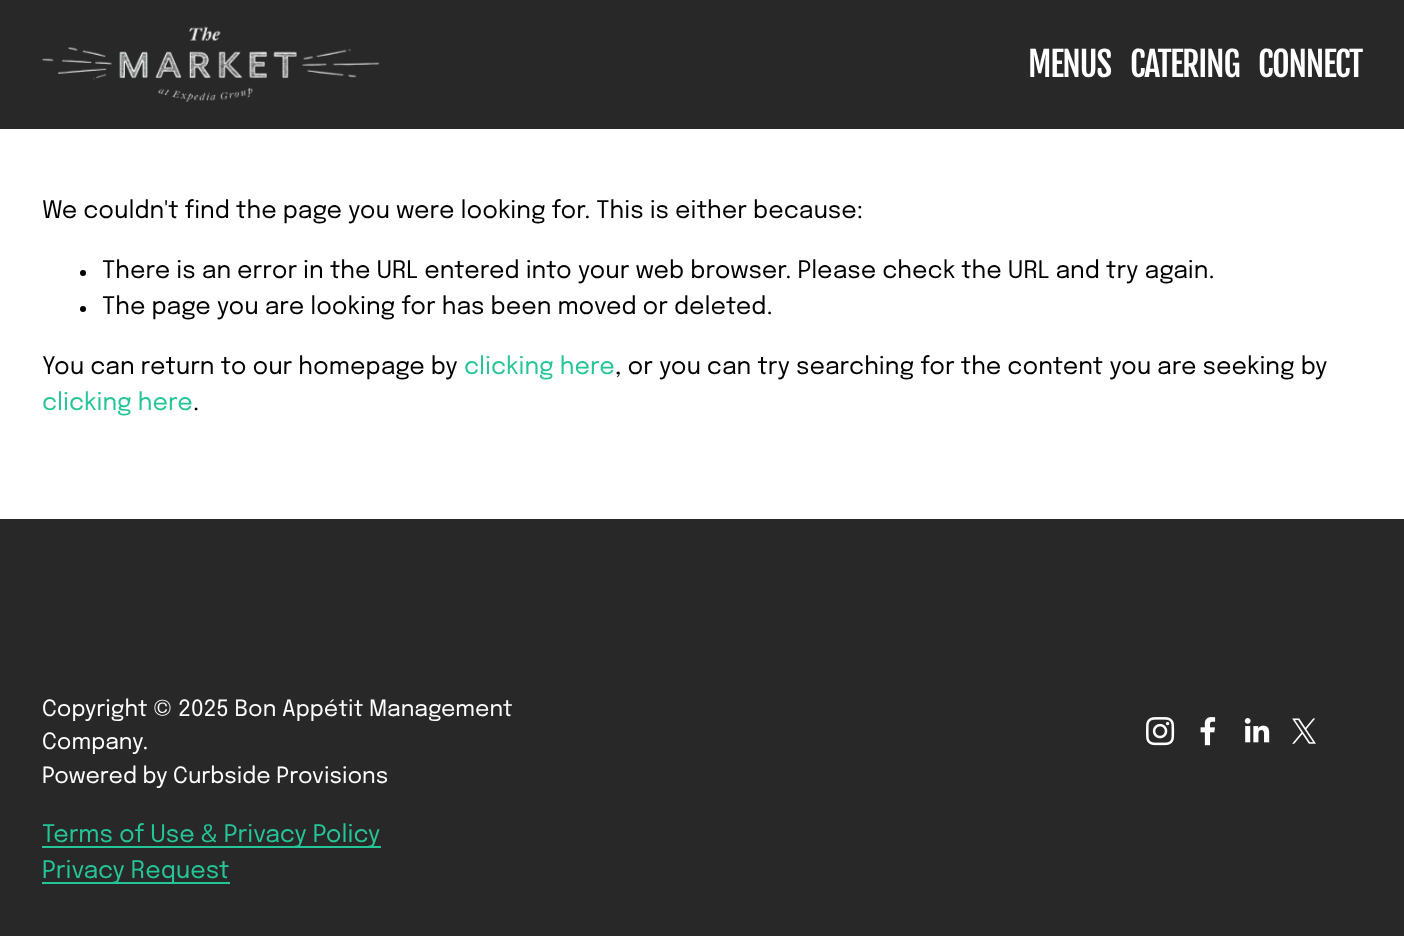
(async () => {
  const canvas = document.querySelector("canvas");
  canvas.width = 1404;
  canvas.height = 936;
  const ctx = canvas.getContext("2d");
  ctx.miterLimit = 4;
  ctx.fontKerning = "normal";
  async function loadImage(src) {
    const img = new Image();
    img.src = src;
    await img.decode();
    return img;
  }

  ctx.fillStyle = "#ffffff";
  ctx.fillRect(0, 0, 1404, 936);
  ctx.fillStyle = "#282828";
  ctx.fillRect(0, 0, 1404, 129);
  ctx.drawImage(await loadImage("img/1.png"), 42, 26, 338, 76);
  ctx.fillStyle = "#000000";
  ctx.beginPath();
  ctx.arc(83, 273, 3, 0, Math.PI * 2);
  ctx.fill();
  ctx.beginPath();
  ctx.arc(83, 309, 3, 0, Math.PI * 2);
  ctx.fill();
  for (const [x, y, w, h, color] of [
    [0, 519, 1404, 417, "#282828"],
    [42, 846, 339, 2, "#25c597"],
    [42, 882, 188, 2, "#25c597"],
  ]) {
    ctx.fillStyle = color;
    ctx.fillRect(x, y, w, h);
  }
  ctx.drawImage(await loadImage("img/2.png"), 1146, 717, 29, 29);
  ctx.drawImage(await loadImage("img/3.png"), 1200, 717, 16, 29);
  ctx.drawImage(await loadImage("img/4.png"), 1244, 718, 26, 25);
  ctx.drawImage(await loadImage("img/5.png"), 1292, 718, 24, 26);
  ctx.letterSpacing = "-1.25px";
  ctx.font = "34px Fjalla One";
  ctx.fillStyle = "#ffffff";
  for (const [text, x, y] of [
    ["MENUS", 1028, 77],
    ["CATERING", 1130, 77],
    ["CONNECT", 1258, 77],
  ]) {
    ctx.fillText(text, x, y);
  }
  ctx.letterSpacing = "0px";
  ctx.font = "24px Epilogue";
  ctx.fillStyle = "#000000";
  for (const [text, x, y] of [
    ["We couldn't find the page you were looking for. This is either because:", 42, 218],
    ["There is an error in the URL entered into your web browser. Please check the URL and try again.", 102, 278],
    ["The page you are looking for has been moved or deleted.", 102, 314],
    ["You can return to our homepage by", 42, 374],
  ]) {
    ctx.fillText(text, x, y);
  }
  ctx.fillStyle = "#25c597";
  ctx.fillText("clicking here", 464, 374);
  ctx.fillStyle = "#000000";
  ctx.fillText(", or you can try searching for the content you are seeking by", 615, 374);
  ctx.fillStyle = "#25c597";
  ctx.fillText("clicking here", 42, 410);
  ctx.fillStyle = "#000000";
  ctx.fillText(".", 193, 410);
  ctx.font = "22.3px Epilogue";
  ctx.fillStyle = "#ffffff";
  for (const [text, x, y] of [
    ["Copyright © 2025 Bon Appétit Management", 42, 716],
    ["Company.", 42, 749],
    ["Powered by Curbside Provisions", 42, 783],
  ]) {
    ctx.fillText(text, x, y);
  }
  ctx.font = "24px Epilogue";
  ctx.fillStyle = "#25c597";
  ctx.fillText("Terms of Use & Privacy Policy", 42, 842);
  ctx.fillText("Privacy Request", 42, 878);
})();
